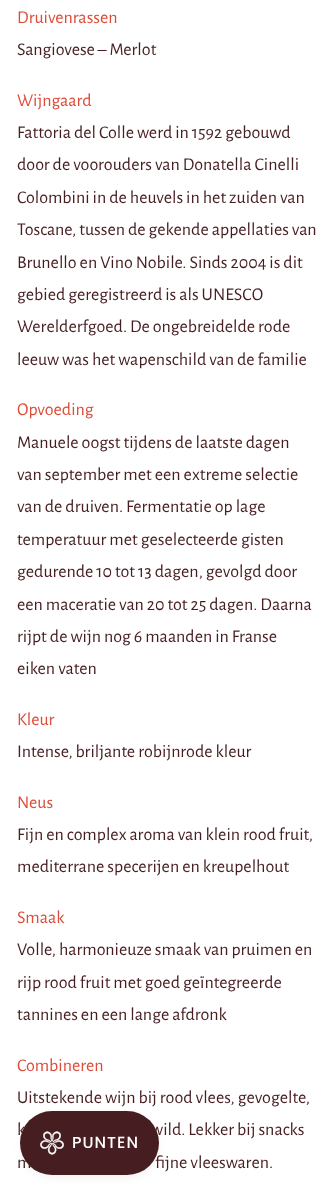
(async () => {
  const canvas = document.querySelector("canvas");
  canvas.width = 333;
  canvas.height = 1195;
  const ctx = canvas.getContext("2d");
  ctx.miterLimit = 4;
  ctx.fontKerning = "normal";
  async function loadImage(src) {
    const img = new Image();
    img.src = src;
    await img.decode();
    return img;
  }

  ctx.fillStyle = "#ffffff";
  ctx.fillRect(0, 0, 333, 1195);
  ctx.fillStyle = "rgba(68, 68, 68, 0.08)";
  ctx.filter = "blur(4px)";
  ctx.beginPath();
  ctx.roundRect(22, 1117, 135, 60, 30);
  ctx.fill();
  ctx.filter = "none";
  ctx.fillStyle = "#461d20";
  ctx.beginPath();
  ctx.roundRect(20, 1111, 139, 64, 32);
  ctx.fill();
  ctx.drawImage(await loadImage("img/1.png"), 40, 1131, 24, 24);
  ctx.font = "18px Alegreya Sans";
  ctx.fillStyle = "#dd4b39";
  ctx.fillText("Druivenrassen", 17, 23);
  ctx.fillStyle = "#461d20";
  ctx.fillText("Sangiovese – Merlot", 17, 55);
  ctx.fillStyle = "#dd4b39";
  ctx.fillText("Wijngaard", 17, 106);
  ctx.fillStyle = "#461d20";
  for (const [text, x, y] of [
    ["Fattoria del Colle werd in 1592 gebouwd", 17, 138],
    ["door de voorouders van Donatella Cinelli", 17, 170],
    ["Colombini in de heuvels in het zuiden van", 17, 203],
    ["Toscane, tussen de gekende appellaties van", 17, 235],
    ["Brunello en Vino Nobile. Sinds 2004 is dit", 17, 268],
    ["gebied geregistreerd is als UNESCO", 17, 300],
    ["Werelderfgoed. De ongebreidelde rode", 17, 332],
    ["leeuw was het wapenschild van de familie", 17, 365],
  ]) {
    ctx.fillText(text, x, y);
  }
  ctx.fillStyle = "#dd4b39";
  ctx.fillText("Opvoeding", 17, 415);
  ctx.fillStyle = "#461d20";
  for (const [text, x, y] of [
    ["Manuele oogst tijdens de laatste dagen", 17, 448],
    ["van september met een extreme selectie", 17, 480],
    ["van de druiven. Fermentatie op lage", 17, 512],
    ["temperatuur met geselecteerde gisten", 17, 545],
    ["gedurende 10 tot 13 dagen, gevolgd door", 17, 577],
    ["een maceratie van 20 tot 25 dagen. Daarna", 17, 610],
    ["rijpt de wijn nog 6 maanden in Franse", 17, 642],
    ["eiken vaten", 17, 674],
  ]) {
    ctx.fillText(text, x, y);
  }
  ctx.fillStyle = "#dd4b39";
  ctx.fillText("Kleur", 17, 725);
  ctx.fillStyle = "#461d20";
  ctx.fillText("Intense, briljante robijnrode kleur", 17, 757);
  ctx.fillStyle = "#dd4b39";
  ctx.fillText("Neus", 17, 808);
  ctx.fillStyle = "#461d20";
  ctx.fillText("Fijn en complex aroma van klein rood fruit,", 17, 840);
  ctx.fillText("mediterrane specerijen en kreupelhout", 17, 872);
  ctx.fillStyle = "#dd4b39";
  ctx.fillText("Smaak", 17, 923);
  ctx.fillStyle = "#461d20";
  for (const [text, x, y] of [
    ["Volle, harmonieuze smaak van pruimen en", 17, 955],
    ["rijp rood fruit met goed geïntegreerde", 17, 988],
    ["tannines en een lange afdronk", 17, 1020],
  ]) {
    ctx.fillText(text, x, y);
  }
  ctx.fillStyle = "#dd4b39";
  ctx.fillText("Combineren", 17, 1071);
  ctx.fillStyle = "#461d20";
  for (const [text, x, y] of [
    ["Uitstekende wijn bij rood vlees, gevogelte,", 17, 1103],
    ["k", 17, 1135],
    ["wild. Lekker bij snacks", 151, 1135],
    ["m", 17, 1168],
    ["fijne vleeswaren.", 155, 1168],
  ]) {
    ctx.fillText(text, x, y);
  }
  ctx.letterSpacing = "1px";
  ctx.font = "500 16px Poppins";
  ctx.fillStyle = "#ffffff";
  ctx.fillText("PUNTEN", 72, 1148);
})();
